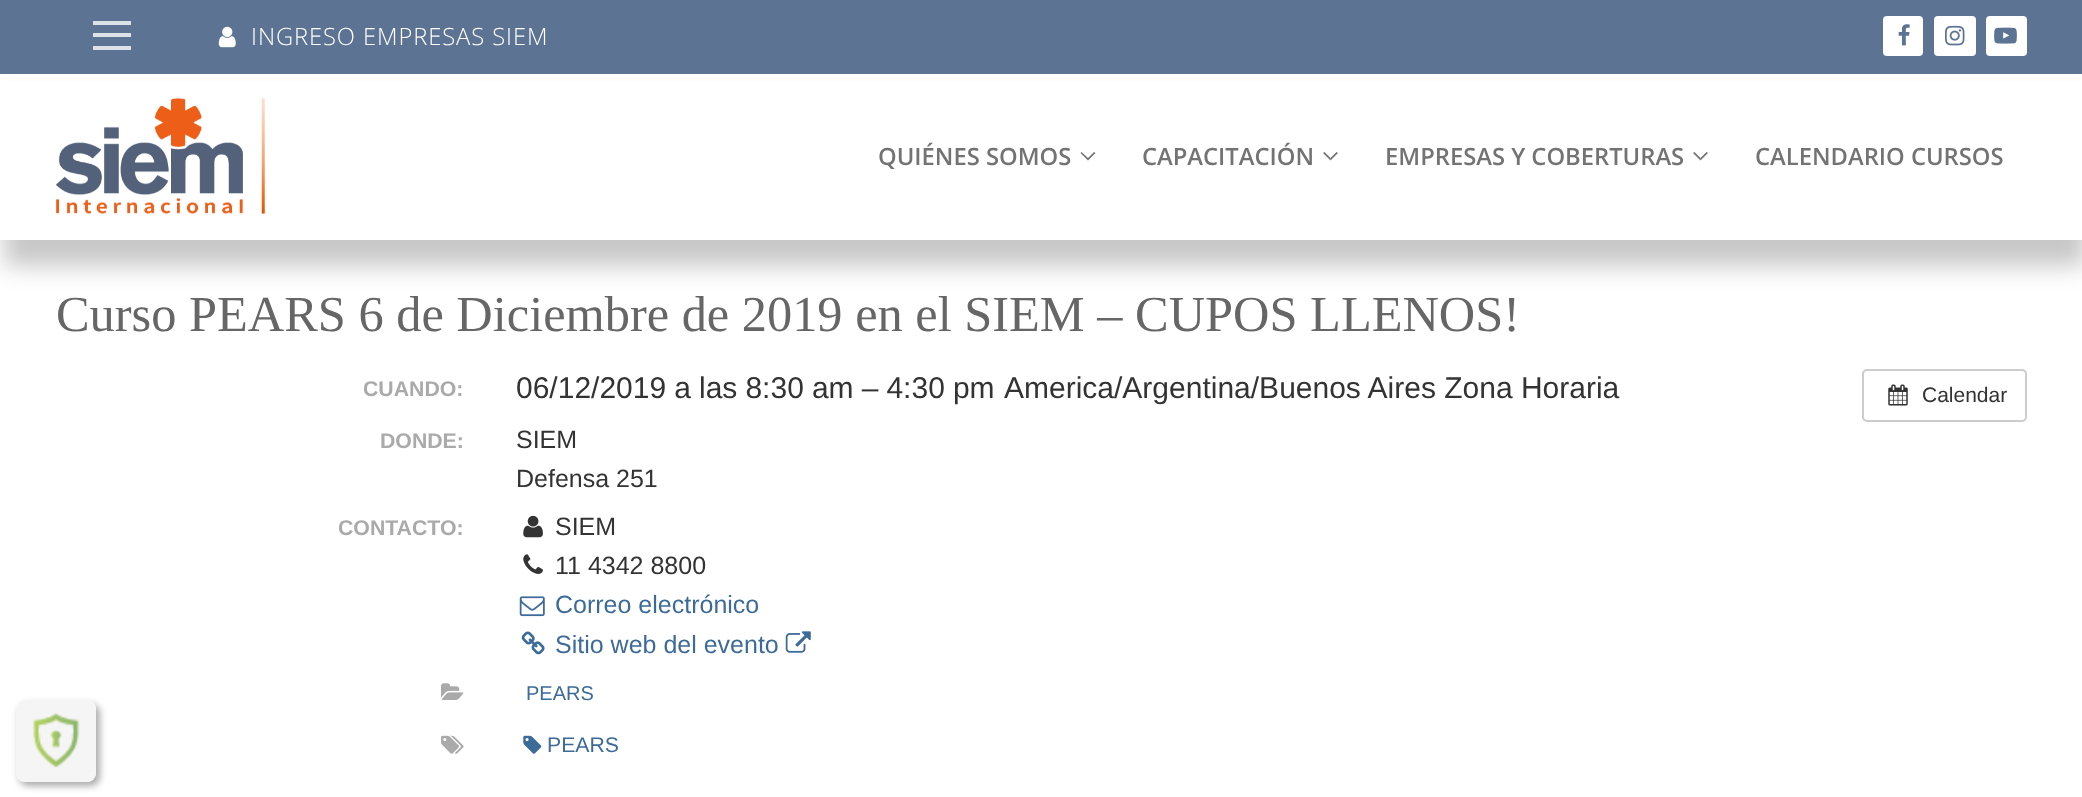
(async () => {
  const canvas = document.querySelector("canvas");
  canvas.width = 2082;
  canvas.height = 797;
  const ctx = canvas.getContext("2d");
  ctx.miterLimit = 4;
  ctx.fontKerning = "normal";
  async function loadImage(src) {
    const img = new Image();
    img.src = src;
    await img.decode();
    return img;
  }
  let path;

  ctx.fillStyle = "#ffffff";
  ctx.fillRect(0, 0, 2082, 797);
  for (const [x, y, w, h, color] of [
    [0, 0, 2082, 74, "#5d7393"],
    [93, 33, 38, 4, "#dde2e8"],
    [93, 21, 38, 4, "#dde2e8"],
    [93, 46, 38, 4, "#dde2e8"],
  ]) {
    ctx.fillStyle = color;
    ctx.fillRect(x, y, w, h);
  }
  ctx.drawImage(await loadImage("img/1.png"), 218, 26, 18, 22);
  ctx.fillStyle = "#ffffff";
  ctx.beginPath();
  ctx.roundRect(1883, 16, 40, 40, 4);
  ctx.fill();
  ctx.drawImage(await loadImage("img/2.png"), 1898, 24, 12, 22);
  ctx.beginPath();
  ctx.roundRect(1934, 16, 42, 40, 4);
  ctx.fill();
  ctx.drawImage(await loadImage("img/3.png"), 1945, 25, 20, 21);
  ctx.beginPath();
  ctx.roundRect(1986, 16, 41, 40, 4);
  ctx.fill();
  ctx.drawImage(await loadImage("img/4.png"), 1994, 27, 23, 17);
  ctx.fillStyle = "rgba(0, 0, 0, 0.22)";
  ctx.filter = "blur(11.5px)";
  ctx.beginPath();
  ctx.rect(4, 100, 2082, 166);
  ctx.fill();
  ctx.filter = "none";
  ctx.fillStyle = "#ffffff";
  ctx.fillRect(0, 81, 2082, 159);
  ctx.drawImage(await loadImage("img/5.png"), 56, 98, 209, 116);
  ctx.fillStyle = "#737373";
  path = new Path2D("M1088 160.5L1080.5 153L1081.5 152L1088 158ZM1095.5 153L1088 160.5V158L1094 152Z");
  ctx.fill(path);
  path = new Path2D("M1330.5 160.5L1323 153L1324.5 152L1330.5 158Z");
  ctx.fill(path);
  ctx.fillStyle = "rgba(0, 0, 0, 0.55)";
  path = new Path2D("M1338 153L1330.5 160.5V158L1336.5 152Z");
  ctx.fill(path);
  ctx.fillStyle = "#737373";
  path = new Path2D("M1700.5 160.5L1693 153L1694.5 152L1700.5 158Z");
  ctx.fill(path);
  ctx.fillStyle = "rgba(0, 0, 0, 0.55)";
  path = new Path2D("M1708 153L1700.5 160.5V158L1706.5 152Z");
  ctx.fill(path);
  ctx.drawImage(await loadImage("img/6.png"), 523, 515, 20, 23);
  ctx.drawImage(await loadImage("img/7.png"), 523, 554, 20, 20);
  ctx.drawImage(await loadImage("img/8.png"), 519, 596, 26, 21);
  ctx.drawImage(await loadImage("img/9.png"), 521, 631, 24, 24);
  ctx.drawImage(await loadImage("img/10.png"), 785, 631, 26, 22);
  ctx.drawImage(await loadImage("img/11.png"), 441, 683, 23, 17);
  ctx.drawImage(await loadImage("img/12.png"), 441, 735, 23, 19);
  ctx.drawImage(await loadImage("img/13.png"), 523, 735, 19, 19);
  ctx.beginPath();
  ctx.roundRect(1863, 370, 163, 51, 4);
  ctx.strokeStyle = "#cccccc";
  ctx.lineWidth = 2;
  ctx.stroke();
  ctx.drawImage(await loadImage("img/14.png"), 1888, 384, 20, 22);
  ctx.save();
  path = new Path2D("M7 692H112V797H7ZM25 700H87C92 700 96 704 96 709V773C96 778 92 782 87 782H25C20 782 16 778 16 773V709C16 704 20 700 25 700Z");
  ctx.clip(path, "evenodd");
  ctx.fillStyle = "rgba(77, 77, 77, 0.47)";
  ctx.filter = "blur(3.5px)";
  ctx.beginPath();
  ctx.roundRect(19, 704, 81, 82, 9);
  ctx.fill();
  ctx.filter = "none";
  ctx.restore();
  ctx.fillStyle = "rgba(245, 245, 245, 0.99)";
  ctx.beginPath();
  ctx.roundRect(16, 700, 80, 82, 9);
  ctx.fill();
  ctx.drawImage(await loadImage("img/15.png"), 33, 713, 47, 55);
  ctx.letterSpacing = "0.9px";
  ctx.font = "300 23.75px Open Sans";
  ctx.fillStyle = "#ffffff";
  ctx.fillText("INGRESO EMPRESAS SIEM", 251, 45);
  ctx.letterSpacing = "0px";
  ctx.font = "600 23.75px Open Sans";
  ctx.fillStyle = "#737373";
  for (const [text, x, y] of [
    ["QUIÉNES SOMOS", 878, 165],
    ["CAPACITACIÓN", 1142, 165],
    ["EMPRESAS Y COBERTURAS", 1385, 165],
    ["CALENDARIO CURSOS", 1755, 165],
  ]) {
    ctx.fillText(text, x, y);
  }
  ctx.font = "50.4px Liberation Serif";
  ctx.fillStyle = "#666666";
  ctx.fillText("Curso PEARS 6 de Diciembre de 2019 en el SIEM – CUPOS LLENOS!", 56, 331);
  ctx.font = "bold 21.25px Liberation Sans";
  ctx.fillStyle = "#aaaaaa";
  ctx.fillText("CUANDO:", 363, 396);
  ctx.wordSpacing = "-0.25px";
  ctx.font = "30px Liberation Sans";
  ctx.fillStyle = "#333333";
  ctx.fillText("06/12/2019 a las 8:30 am – 4:30 pm", 516, 398);
  ctx.wordSpacing = "0px";
  ctx.fillText("America/Argentina/Buenos Aires Zona Horaria", 1004, 398);
  ctx.font = "bold 21.25px Liberation Sans";
  ctx.fillStyle = "#aaaaaa";
  ctx.fillText("DONDE:", 380, 448);
  ctx.font = "25px Liberation Sans";
  ctx.fillStyle = "#333333";
  ctx.fillText("SIEM", 516, 448);
  ctx.fillText("Defensa 251", 516, 487);
  ctx.font = "bold 21.25px Liberation Sans";
  ctx.fillStyle = "#aaaaaa";
  ctx.fillText("CONTACTO:", 338, 535);
  ctx.font = "25px Liberation Sans";
  ctx.fillStyle = "#333333";
  ctx.fillText("SIEM", 555, 535);
  ctx.fillText("11 4342 8800", 555, 574);
  ctx.fillStyle = "#3d6b99";
  ctx.fillText("Correo electrónico", 555, 613);
  ctx.fillText("Sitio web del evento", 555, 653);
  ctx.font = "20px Liberation Sans";
  ctx.fillText("PEARS", 526, 700);
  ctx.font = "21.25px Liberation Sans";
  ctx.fillText("PEARS", 547, 752);
  ctx.font = "21px Liberation Sans";
  ctx.fillStyle = "#333333";
  ctx.fillText("Calendar", 1922, 402);
})();
